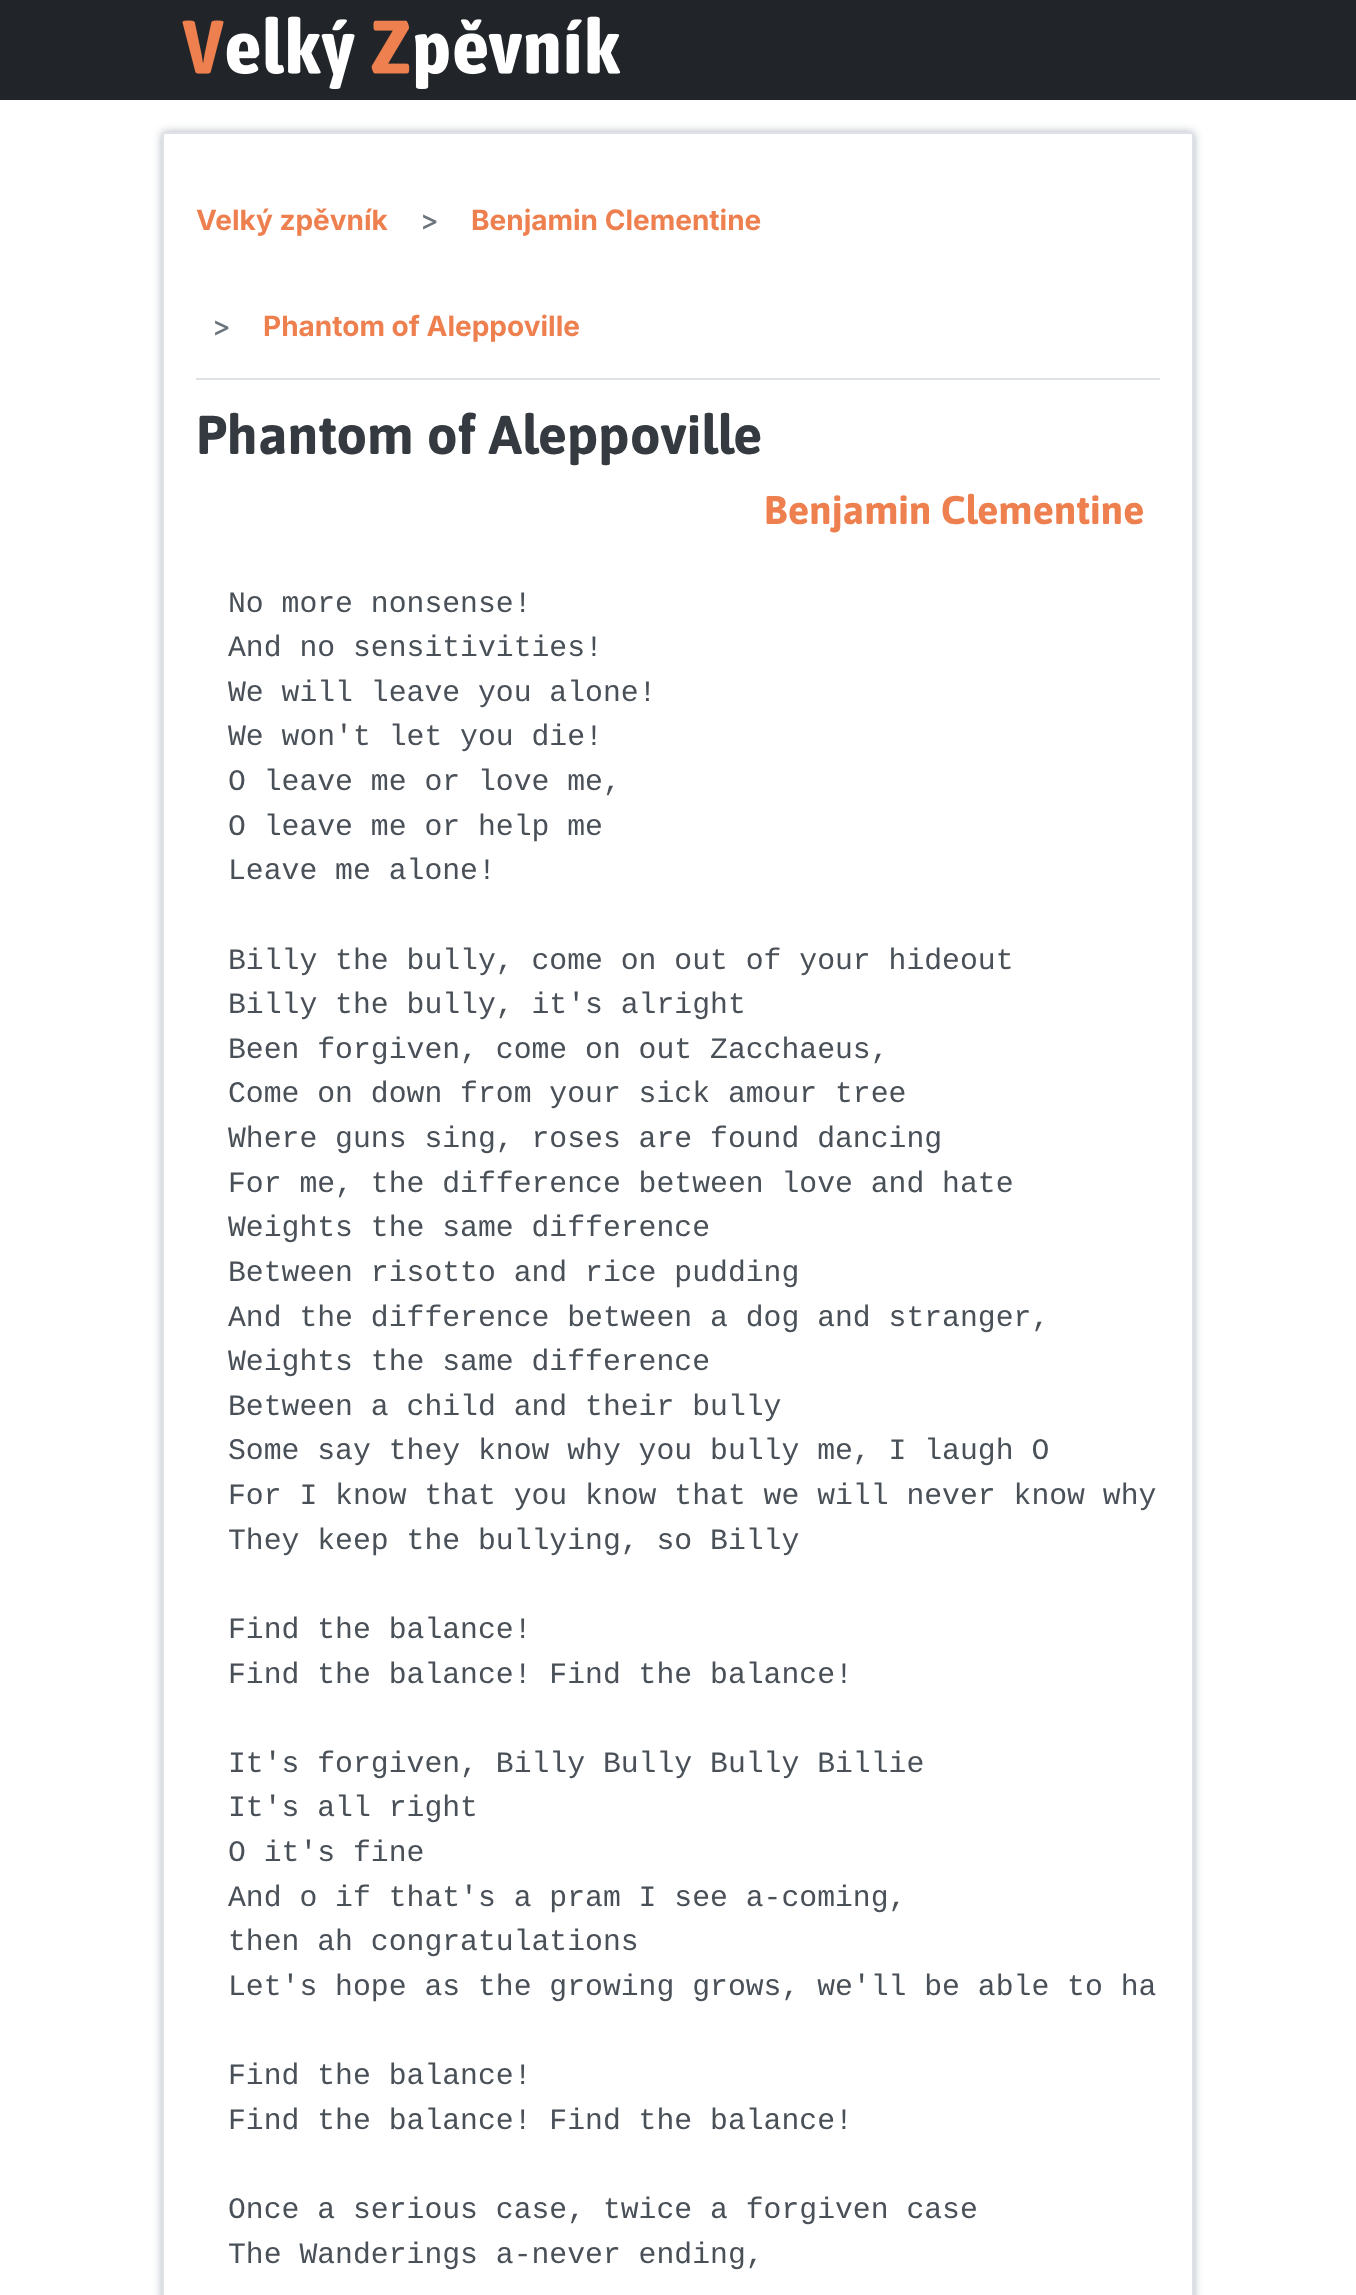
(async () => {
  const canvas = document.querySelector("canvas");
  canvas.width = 1356;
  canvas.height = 2295;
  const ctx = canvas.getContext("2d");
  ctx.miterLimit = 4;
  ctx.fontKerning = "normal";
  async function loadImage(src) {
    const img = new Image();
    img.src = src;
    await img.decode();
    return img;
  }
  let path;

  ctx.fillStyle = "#ffffff";
  ctx.fillRect(0, 0, 1356, 2295);
  ctx.fillStyle = "#212529";
  ctx.fillRect(0, 0, 1356, 100);
  ctx.drawImage(await loadImage("img/1.png"), 182, 16, 439, 73);
  ctx.save();
  path = new Path2D("M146 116H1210V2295H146ZM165 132H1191C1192.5 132 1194 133.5 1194 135V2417C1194 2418.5 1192.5 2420 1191 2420H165C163.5 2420 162 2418.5 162 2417V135C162 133.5 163.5 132 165 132Z");
  ctx.clip(path, "evenodd");
  ctx.fillStyle = "#adb5bd";
  ctx.filter = "blur(5px)";
  ctx.beginPath();
  ctx.roundRect(162, 132, 1032, 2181, 3);
  ctx.fill();
  ctx.filter = "none";
  ctx.restore();
  ctx.beginPath();
  ctx.roundRect(163, 133, 1030, 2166, 2);
  ctx.strokeStyle = "#dee2e6";
  ctx.lineWidth = 2;
  ctx.stroke();
  ctx.fillStyle = "#dee2e6";
  ctx.fillRect(196, 378, 964, 2);
  ctx.font = "bold 28px Inter";
  ctx.fillStyle = "#ee7f4e";
  ctx.fillText("Velký zpěvník", 196, 230);
  ctx.font = "500 28px Inter";
  ctx.fillStyle = "#6c757d";
  ctx.fillText(">", 420, 230);
  ctx.font = "bold 28px Inter";
  ctx.fillStyle = "#ee7f4e";
  ctx.fillText("Benjamin Clementine", 471, 230);
  ctx.font = "500 28px Inter";
  ctx.fillStyle = "#6c757d";
  ctx.fillText(">", 212, 336);
  ctx.font = "bold 28px Inter";
  ctx.fillStyle = "#ee7f4e";
  ctx.fillText("Phantom of Aleppoville", 263, 336);
  ctx.font = "bold 54.6px Asap";
  ctx.fillStyle = "#343a40";
  ctx.fillText("Phantom of Aleppoville", 196, 454);
  ctx.font = "bold 40px Asap";
  ctx.fillStyle = "#ee7f4e";
  ctx.fillText("Benjamin Clementine", 764, 524);
  ctx.font = "29.75px Liberation Mono";
  ctx.fillStyle = "#495057";
  for (const [text, x, y] of [
    ["No more nonsense!", 228, 612],
    ["And no sensitivities!", 228, 656],
    ["We will leave you alone!", 228, 701],
    ["We won't let you die!", 228, 745],
    ["O leave me or love me,", 228, 790],
    ["O leave me or help me", 228, 835],
    ["Leave me alone!", 228, 879],
    ["Billy the bully, come on out of your hideout", 228, 969],
    ["Billy the bully, it's alright", 228, 1013],
    ["Been forgiven, come on out Zacchaeus,", 228, 1058],
    ["Come on down from your sick amour tree", 228, 1102],
    ["Where guns sing, roses are found dancing", 228, 1147],
    ["For me, the difference between love and hate", 228, 1192],
    ["Weights the same difference", 228, 1236],
    ["Between risotto and rice pudding", 228, 1281],
    ["And the difference between a dog and stranger,", 228, 1326],
    ["Weights the same difference", 228, 1370],
    ["Between a child and their bully", 228, 1415],
    ["Some say they know why you bully me, I laugh O", 228, 1459],
    ["For I know that you know that we will never know why", 228, 1504],
    ["They keep the bullying, so Billy", 228, 1549],
    ["Find the balance!", 228, 1638],
    ["Find the balance! Find the balance!", 228, 1683],
    ["It's forgiven, Billy Bully Bully Billie", 228, 1772],
    ["It's all right", 228, 1816],
    ["O it's fine", 228, 1861],
    ["And o if that's a pram I see a-coming,", 228, 1906],
    ["then ah congratulations", 228, 1950],
    ["Let's hope as the growing grows, we'll be able to ha", 228, 1995],
    ["Find the balance!", 228, 2084],
    ["Find the balance! Find the balance!", 228, 2129],
    ["Once a serious case, twice a forgiven case", 228, 2218],
    ["The Wanderings a-never ending,", 228, 2263],
  ]) {
    ctx.fillText(text, x, y);
  }
})();
